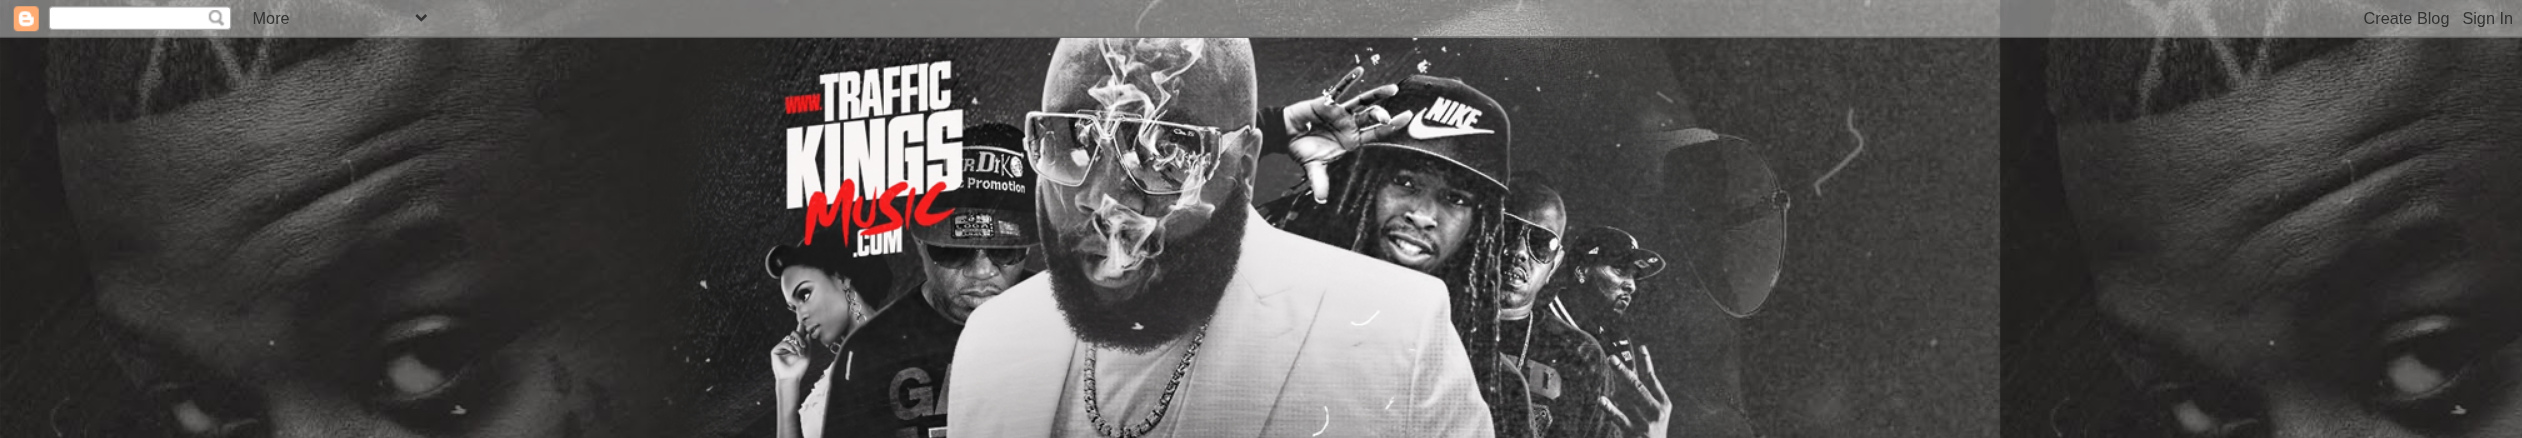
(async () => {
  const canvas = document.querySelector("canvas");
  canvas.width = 2522;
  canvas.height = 438;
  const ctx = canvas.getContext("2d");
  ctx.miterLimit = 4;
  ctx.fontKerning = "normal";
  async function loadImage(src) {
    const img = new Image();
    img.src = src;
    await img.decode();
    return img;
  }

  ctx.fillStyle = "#ffffff";
  ctx.fillRect(0, 0, 2522, 438);
  ctx.drawImage(await loadImage("img/1.png"), 0, 0, 2522, 438);
  ctx.drawImage(await loadImage("img/3.png"), 647, 37, 1119, 401);
  ctx.drawImage(await loadImage("img/2.png"), 0, 0, 2522, 38);
})();
